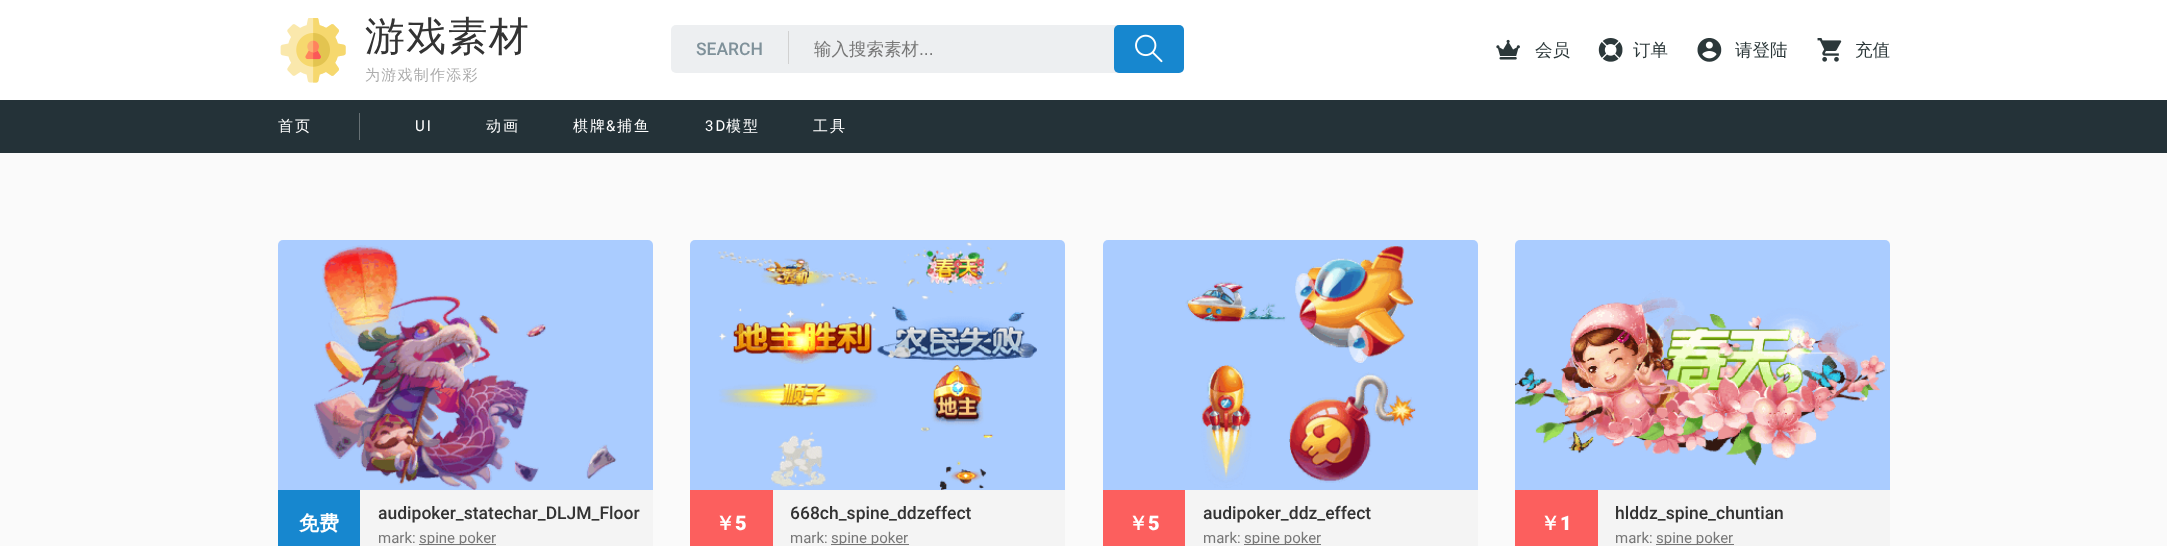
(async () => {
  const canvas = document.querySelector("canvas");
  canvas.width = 2167;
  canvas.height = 546;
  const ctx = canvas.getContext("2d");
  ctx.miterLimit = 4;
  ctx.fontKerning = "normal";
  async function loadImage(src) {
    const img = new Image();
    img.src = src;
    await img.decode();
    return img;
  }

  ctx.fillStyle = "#fafafa";
  ctx.fillRect(0, 0, 2167, 546);
  ctx.fillStyle = "#ffffff";
  ctx.fillRect(0, 0, 2167, 100);
  ctx.drawImage(await loadImage("img/1.png"), 280, 18, 66, 65);
  ctx.fillStyle = "#edeff1";
  ctx.beginPath();
  ctx.roundRect(671, 25, 513, 48, 5);
  ctx.fill();
  ctx.fillStyle = "#d1d1d1";
  ctx.fillRect(788, 31, 1, 33);
  ctx.fillStyle = "#1787cf";
  ctx.beginPath();
  ctx.roundRect(1114, 25, 70, 48, 5);
  ctx.fill();
  ctx.drawImage(await loadImage("img/2.png"), 1135, 34, 28, 29);
  ctx.drawImage(await loadImage("img/3.png"), 1496, 39, 24, 21);
  ctx.drawImage(await loadImage("img/4.png"), 1598, 38, 25, 24);
  ctx.drawImage(await loadImage("img/5.png"), 1697, 38, 25, 24);
  ctx.drawImage(await loadImage("img/6.png"), 1817, 38, 25, 24);
  ctx.fillStyle = "#243238";
  ctx.fillRect(0, 100, 2167, 53);
  ctx.fillStyle = "#667074";
  ctx.fillRect(359, 113, 1, 27);
  ctx.fillStyle = "#aaccff";
  ctx.beginPath();
  ctx.roundRect(278, 240, 375, 250, [5, 5, 0, 0]);
  ctx.fill();
  ctx.drawImage(await loadImage("img/7.png"), 314, 245, 303, 245);
  for (const [x, y, w, h, color] of [
    [360, 490, 293, 56, "#f4f4f4"],
    [278, 490, 82, 56, "#1787cf"],
    [419, 544, 77, 1, "#777777"],
  ]) {
    ctx.fillStyle = color;
    ctx.fillRect(x, y, w, h);
  }
  ctx.fillStyle = "#aaccff";
  ctx.beginPath();
  ctx.roundRect(690, 240, 375, 250, [5, 5, 0, 0]);
  ctx.fill();
  ctx.drawImage(await loadImage("img/8.png"), 718, 242, 319, 248);
  for (const [x, y, w, h, color] of [
    [773, 490, 292, 56, "#f4f4f4"],
    [690, 490, 83, 56, "#fc5f5e"],
    [831, 544, 78, 1, "#777777"],
  ]) {
    ctx.fillStyle = color;
    ctx.fillRect(x, y, w, h);
  }
  ctx.fillStyle = "#aaccff";
  ctx.beginPath();
  ctx.roundRect(1103, 240, 375, 250, [5, 5, 0, 0]);
  ctx.fill();
  ctx.drawImage(await loadImage("img/9.png"), 1185, 246, 231, 242);
  for (const [x, y, w, h, color] of [
    [1185, 490, 293, 56, "#f4f4f4"],
    [1103, 490, 82, 56, "#fc5f5e"],
    [1244, 544, 77, 1, "#777777"],
  ]) {
    ctx.fillStyle = color;
    ctx.fillRect(x, y, w, h);
  }
  ctx.fillStyle = "#aaccff";
  ctx.beginPath();
  ctx.roundRect(1515, 240, 375, 250, [5, 5, 0, 0]);
  ctx.fill();
  ctx.drawImage(await loadImage("img/10.png"), 1515, 290, 373, 176);
  for (const [x, y, w, h, color] of [
    [1598, 490, 292, 56, "#f4f4f4"],
    [1515, 490, 83, 56, "#fc5f5e"],
    [1656, 544, 78, 1, "#777777"],
  ]) {
    ctx.fillStyle = color;
    ctx.fillRect(x, y, w, h);
  }
  ctx.letterSpacing = "1.25px";
  ctx.font = "500 40px WenQuanYi Zen Hei";
  ctx.fillStyle = "#333333";
  ctx.fillText("游戏素材", 365, 50);
  ctx.font = "500 15px WenQuanYi Zen Hei";
  ctx.fillStyle = "#adadad";
  ctx.fillText("为游戏制作添彩", 365, 80);
  ctx.letterSpacing = "0px";
  ctx.font = "500 17.5px Roboto";
  ctx.fillStyle = "#7f919a";
  ctx.fillText("SEARCH", 696, 55);
  ctx.font = "500 17.5px WenQuanYi Zen Hei";
  ctx.fillStyle = "#777777";
  ctx.fillText("输入搜索素材", 814, 55);
  ctx.font = "17.5px Liberation Sans";
  ctx.fillText("...", 919, 55);
  ctx.font = "500 17.5px WenQuanYi Zen Hei";
  ctx.fillStyle = "#2c383a";
  for (const [text, x, y] of [
    ["会员", 1535, 56],
    ["订单", 1633, 56],
    ["请登陆", 1735, 56],
    ["充值", 1855, 56],
  ]) {
    ctx.fillText(text, x, y);
  }
  ctx.letterSpacing = "2px";
  ctx.font = "500 15px WenQuanYi Zen Hei";
  ctx.fillStyle = "#ffffff";
  ctx.fillText("首页", 278, 131);
  ctx.font = "15px Roboto";
  ctx.fillText("UI", 415, 131);
  ctx.font = "500 15px WenQuanYi Zen Hei";
  ctx.fillText("动画", 486, 131);
  ctx.fillText("棋牌", 573, 131);
  ctx.font = "15px Roboto";
  ctx.fillText("&", 606, 131);
  ctx.font = "500 15px WenQuanYi Zen Hei";
  ctx.fillText("捕鱼", 617, 131);
  ctx.font = "15px Roboto";
  ctx.fillText("3D", 705, 131);
  ctx.font = "500 15px WenQuanYi Zen Hei";
  ctx.fillText("模型", 726, 131);
  ctx.fillText("工具", 813, 131);
  ctx.letterSpacing = "0px";
  ctx.font = "bold 20px WenQuanYi Zen Hei";
  ctx.fillText("免费", 299, 530);
  ctx.font = "500 17.5px Roboto";
  ctx.fillStyle = "#333333";
  ctx.fillText("audipoker_statechar_DLJM_Floor", 378, 519);
  ctx.font = "15px Roboto";
  ctx.fillStyle = "#777777";
  ctx.fillText("mark:", 378, 543);
  ctx.save();
  ctx.beginPath();
  ctx.rect(378, 530, 262, 15);
  ctx.clip();
  ctx.fillText("spine poker", 419, 543);
  ctx.restore();
  ctx.font = "bold 20px WenQuanYi Zen Hei";
  ctx.fillStyle = "#ffffff";
  ctx.fillText("￥", 715, 530);
  ctx.font = "900 20px Roboto";
  ctx.fillText("5", 735, 530);
  ctx.font = "500 17.5px Roboto";
  ctx.fillStyle = "#333333";
  ctx.fillText("668ch_spine_ddzeffect", 790, 519);
  ctx.font = "15px Roboto";
  ctx.fillStyle = "#777777";
  ctx.fillText("mark:", 790, 543);
  ctx.save();
  ctx.beginPath();
  ctx.rect(790, 530, 263, 15);
  ctx.clip();
  ctx.fillText("spine poker", 831, 543);
  ctx.restore();
  ctx.font = "bold 20px WenQuanYi Zen Hei";
  ctx.fillStyle = "#ffffff";
  ctx.fillText("￥", 1128, 530);
  ctx.font = "900 20px Roboto";
  ctx.fillText("5", 1148, 530);
  ctx.font = "500 17.5px Roboto";
  ctx.fillStyle = "#333333";
  ctx.fillText("audipoker_ddz_effect", 1203, 519);
  ctx.font = "15px Roboto";
  ctx.fillStyle = "#777777";
  ctx.fillText("mark:", 1203, 543);
  ctx.save();
  ctx.beginPath();
  ctx.rect(1203, 530, 262, 15);
  ctx.clip();
  ctx.fillText("spine poker", 1244, 543);
  ctx.restore();
  ctx.font = "bold 20px WenQuanYi Zen Hei";
  ctx.fillStyle = "#ffffff";
  ctx.fillText("￥", 1540, 530);
  ctx.font = "900 20px Roboto";
  ctx.fillText("1", 1560, 530);
  ctx.font = "500 17.5px Roboto";
  ctx.fillStyle = "#333333";
  ctx.fillText("hlddz_spine_chuntian", 1615, 519);
  ctx.font = "15px Roboto";
  ctx.fillStyle = "#777777";
  ctx.fillText("mark:", 1615, 543);
  ctx.save();
  ctx.beginPath();
  ctx.rect(1615, 530, 263, 15);
  ctx.clip();
  ctx.fillText("spine poker", 1656, 543);
  ctx.restore();
})();
